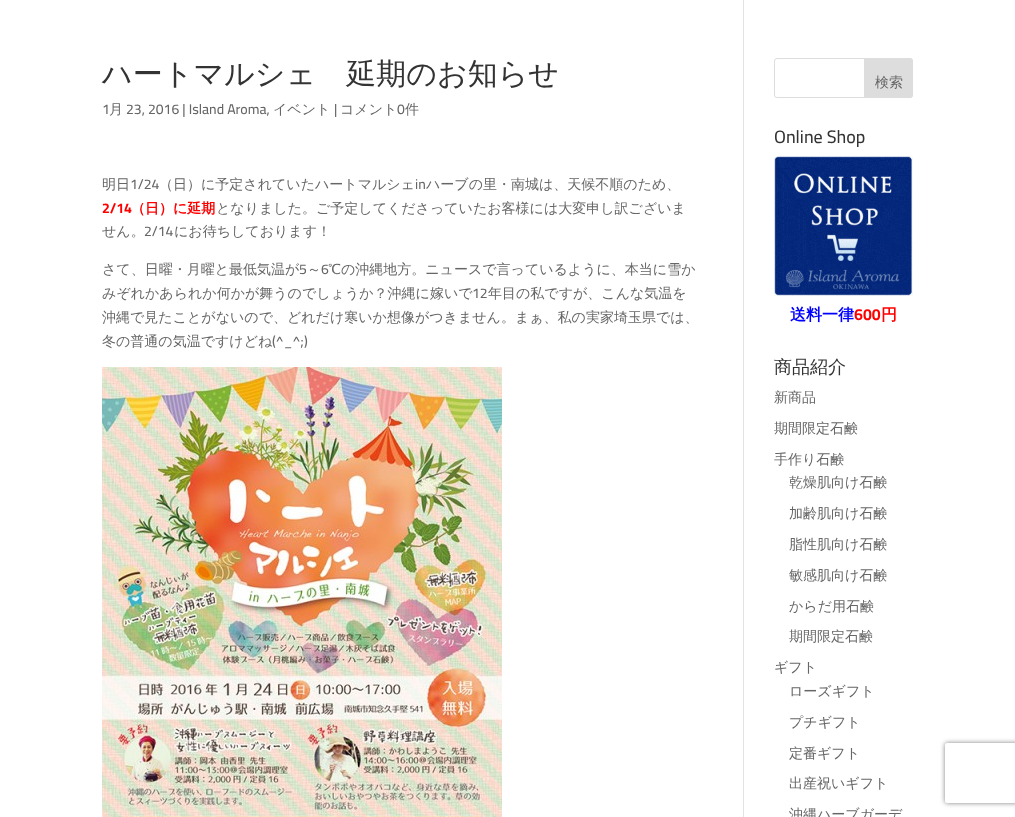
(async () => {
  const canvas = document.querySelector("canvas");
  canvas.width = 1015;
  canvas.height = 817;
  const ctx = canvas.getContext("2d");
  ctx.miterLimit = 4;
  ctx.fontKerning = "normal";
  async function loadImage(src) {
    const img = new Image();
    img.src = src;
    await img.decode();
    return img;
  }
  let path;

  ctx.fillStyle = "#ffffff";
  ctx.fillRect(0, 0, 1015, 817);
  ctx.fillStyle = "#e2e2e2";
  ctx.fillRect(743, 0, 1, 817);
  ctx.drawImage(await loadImage("img/1.png"), 102, 367, 400, 450);
  ctx.beginPath();
  ctx.roundRect(774.5, 58.5, 138, 39, 2.5);
  ctx.strokeStyle = "#dddddd";
  ctx.stroke();
  ctx.fillStyle = "#dddddd";
  ctx.beginPath();
  ctx.roundRect(864.5, 58.5, 48, 39, [0, 2.5, 2.5, 0]);
  ctx.fill();
  ctx.stroke();
  ctx.drawImage(await loadImage("img/2.png"), 774, 156, 139, 140);
  ctx.save();
  path = new Path2D("M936 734H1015V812H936ZM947 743H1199C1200 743 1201 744 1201 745V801C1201 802 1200 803 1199 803H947C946 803 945 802 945 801V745C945 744 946 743 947 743Z");
  ctx.clip(path, "evenodd");
  ctx.fillStyle = "#808080";
  ctx.filter = "blur(2.5px)";
  ctx.beginPath();
  ctx.roundRect(945, 743, 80, 60, 2);
  ctx.fill();
  ctx.filter = "none";
  ctx.restore();
  ctx.font = "500 30px WenQuanYi Zen Hei";
  ctx.fillStyle = "#333333";
  ctx.fillText("ハートマルシェ　延期のお知らせ", 102, 84);
  ctx.font = "500 14px Cairo";
  ctx.fillStyle = "#666666";
  ctx.fillText("1", 102, 114);
  ctx.font = "500 14px WenQuanYi Zen Hei";
  ctx.fillText("月", 109, 114);
  ctx.font = "500 14px Cairo";
  ctx.fillText("23, 2016 | Island Aroma,", 126, 114);
  ctx.font = "500 14px WenQuanYi Zen Hei";
  ctx.fillText("イベント", 273, 114);
  ctx.font = "500 14px Cairo";
  ctx.fillText("|", 334, 114);
  ctx.font = "500 14px WenQuanYi Zen Hei";
  ctx.fillText("コメント", 340, 114);
  ctx.font = "500 14px Cairo";
  ctx.fillText("0", 397, 114);
  ctx.font = "500 14px WenQuanYi Zen Hei";
  ctx.fillText("件", 405, 114);
  ctx.fillText("明日", 102, 189);
  ctx.font = "500 14px Cairo";
  ctx.fillText("1/24", 130, 189);
  ctx.font = "500 14px WenQuanYi Zen Hei";
  ctx.fillText("（日）に予定されていたハートマルシェ", 159, 189);
  ctx.font = "500 14px Cairo";
  ctx.fillText("in", 415, 189);
  ctx.font = "500 14px WenQuanYi Zen Hei";
  ctx.fillText("ハーブの里・南城は、天候不順のため、", 426, 189);
  ctx.font = "bold 14px Cairo";
  ctx.fillStyle = "#ff0000";
  ctx.fillText("2/14", 102, 213);
  ctx.font = "bold 14px WenQuanYi Zen Hei";
  ctx.fillText("（日）に延期", 131, 213);
  ctx.font = "500 14px WenQuanYi Zen Hei";
  ctx.fillStyle = "#666666";
  ctx.fillText("となりました。ご予定してくださっていたお客様には大変申し訳ございま", 216, 213);
  ctx.fillText("せん。", 102, 236);
  ctx.font = "500 14px Cairo";
  ctx.fillText("2/14", 144, 236);
  ctx.font = "500 14px WenQuanYi Zen Hei";
  ctx.fillText("にお待ちしております！", 174, 236);
  ctx.fillText("さて、日曜・月曜と最低気温が", 102, 274);
  ctx.font = "500 14px Cairo";
  ctx.fillText("5", 299, 274);
  ctx.font = "500 14px WenQuanYi Zen Hei";
  ctx.fillText("～", 307, 274);
  ctx.font = "500 14px Cairo";
  ctx.fillText("6", 321, 274);
  ctx.font = "500 14px WenQuanYi Zen Hei";
  ctx.fillText("℃の沖縄地方。ニュースで言っているように、本当に雪か", 328, 274);
  ctx.fillText("みぞれかあられか何かが舞うのでしょうか？沖縄に嫁いで", 102, 298);
  ctx.font = "500 14px Cairo";
  ctx.fillText("12", 472, 298);
  ctx.font = "500 14px WenQuanYi Zen Hei";
  for (const [text, x, y] of [
    ["年目の私ですが、こんな気温を", 488, 298],
    ["沖縄で見たことがないので、どれだけ寒いか想像がつきません。まぁ、私の実家埼玉県では、", 102, 322],
    ["冬の普通の気温ですけどね", 102, 346],
  ]) {
    ctx.fillText(text, x, y);
  }
  ctx.font = "500 14px Cairo";
  ctx.fillText("(^_^;)", 272, 346);
  ctx.font = "500 14px WenQuanYi Zen Hei";
  ctx.fillText("検索", 875, 87);
  ctx.font = "500 18px Cairo";
  ctx.fillStyle = "#333333";
  ctx.fillText("Online Shop", 774, 143);
  ctx.font = "bold 16px WenQuanYi Zen Hei";
  ctx.fillStyle = "#0000ff";
  ctx.fillText("送料一律", 790, 320);
  ctx.font = "bold 16px Cairo";
  ctx.fillStyle = "#ff0000";
  ctx.fillText("600", 854, 320);
  ctx.font = "bold 16px WenQuanYi Zen Hei";
  ctx.fillText("円", 881, 320);
  ctx.font = "500 18px WenQuanYi Zen Hei";
  ctx.fillStyle = "#333333";
  ctx.fillText("商品紹介", 774, 373);
  ctx.font = "500 14px WenQuanYi Zen Hei";
  ctx.fillStyle = "#666666";
  for (const [text, x, y] of [
    ["新商品", 774, 402],
    ["期間限定石鹸", 774, 433],
    ["手作り石鹸", 774, 464],
    ["乾燥肌向け石鹸", 789, 487],
    ["加齢肌向け石鹸", 789, 518],
    ["脂性肌向け石鹸", 789, 549],
    ["敏感肌向け石鹸", 789, 580],
    ["からだ用石鹸", 789, 611],
    ["期間限定石鹸", 789, 641],
    ["ギフト", 774, 672],
    ["ローズギフト", 789, 696],
    ["プチギフト", 789, 727],
    ["定番ギフト", 789, 758],
    ["出産祝いギフト", 789, 788],
    ["沖縄ハーブガーデ", 789, 819],
  ]) {
    ctx.fillText(text, x, y);
  }
})();
